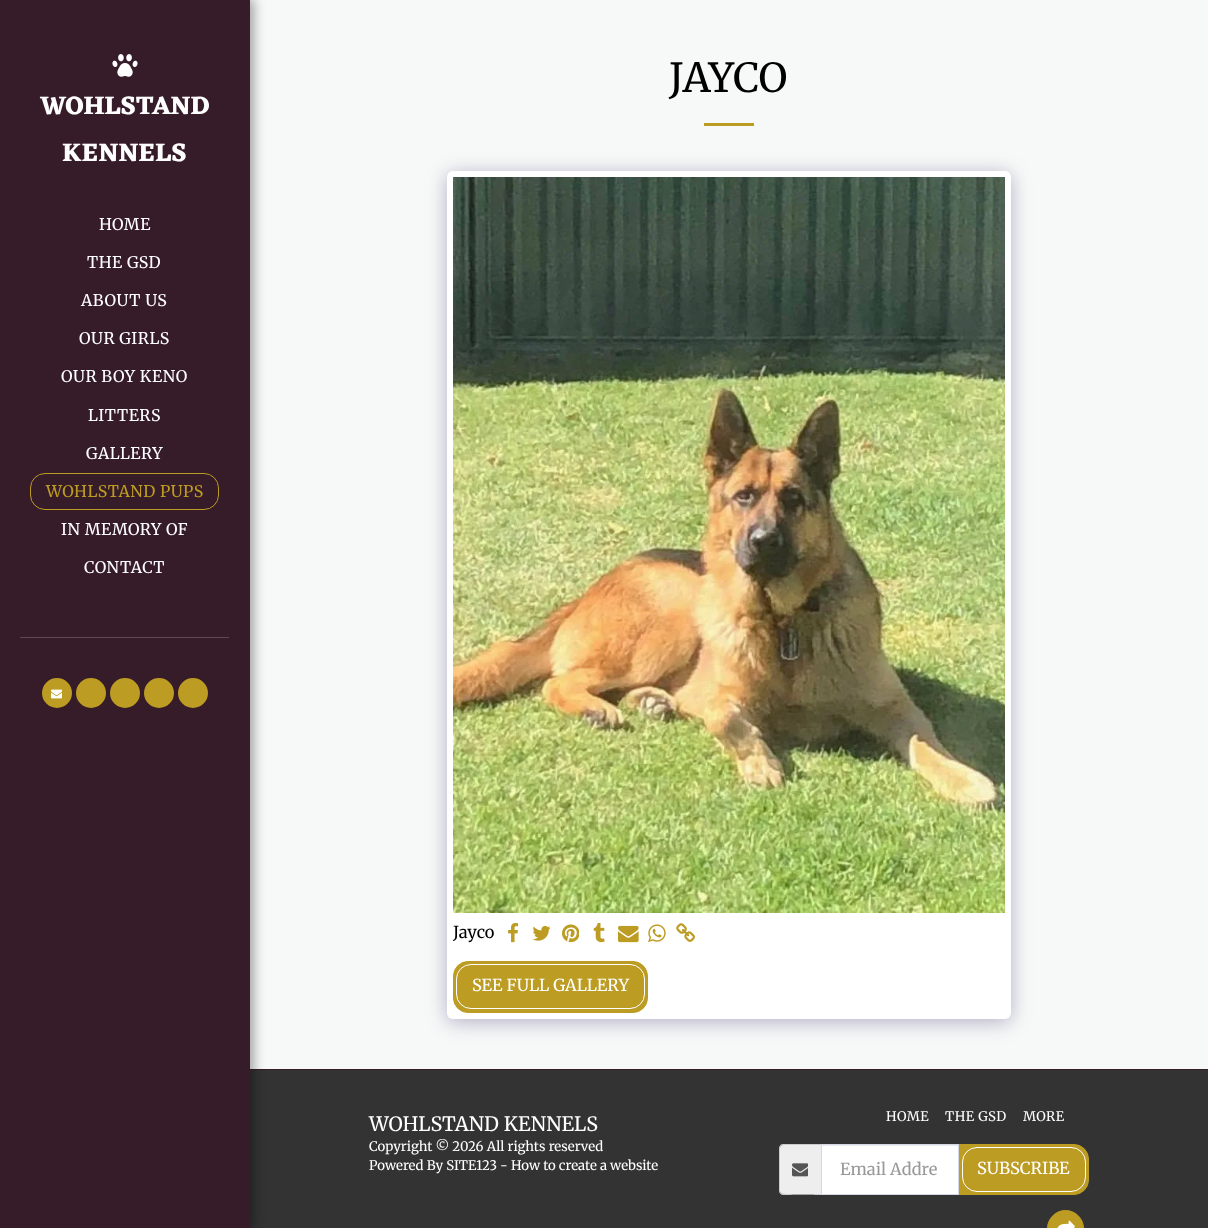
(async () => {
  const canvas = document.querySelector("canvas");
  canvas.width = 1208;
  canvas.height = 1228;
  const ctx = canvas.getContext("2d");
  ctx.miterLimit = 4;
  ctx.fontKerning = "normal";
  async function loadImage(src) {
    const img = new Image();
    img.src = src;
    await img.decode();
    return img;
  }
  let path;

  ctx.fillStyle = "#f7f9f8";
  ctx.fillRect(0, 0, 1208, 1228);
  ctx.fillStyle = "#333333";
  ctx.fillRect(250, 1070, 958, 158);
  ctx.fillStyle = "#361b28";
  ctx.fillRect(250, 1069, 958, 1);
  ctx.fillStyle = "rgba(0, 0, 0, 0.35)";
  ctx.filter = "blur(6px)";
  ctx.beginPath();
  ctx.rect(0, -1, 254, 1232);
  ctx.fill();
  ctx.filter = "none";
  ctx.fillStyle = "#361b28";
  ctx.fillRect(0, 0, 250, 1228);
  ctx.drawImage(await loadImage("img/1.png"), 112, 54, 26, 23);
  ctx.beginPath();
  ctx.roundRect(30.5, 473.5, 188, 36, 14.5);
  ctx.strokeStyle = "#bc9c22";
  ctx.stroke();
  ctx.fillStyle = "#5e4953";
  ctx.fillRect(20, 637, 209, 1);
  ctx.fillStyle = "#bc9c22";
  ctx.beginPath();
  ctx.arc(57, 693, 15, 0, Math.PI * 2);
  ctx.fill();
  ctx.drawImage(await loadImage("img/2.png"), 51, 689, 11, 10);
  ctx.beginPath();
  ctx.arc(91, 693, 15, 0, Math.PI * 2);
  ctx.fill();
  ctx.beginPath();
  ctx.arc(125, 693, 15, 0, Math.PI * 2);
  ctx.fill();
  ctx.beginPath();
  ctx.arc(159, 693, 15, 0, Math.PI * 2);
  ctx.fill();
  ctx.beginPath();
  ctx.arc(193, 693, 15, 0, Math.PI * 2);
  ctx.fill();
  ctx.fillRect(704, 123, 50, 3);
  ctx.fillStyle = "rgba(77, 63, 122, 0.4)";
  ctx.filter = "blur(10px)";
  ctx.beginPath();
  ctx.roundRect(447, 174, 564, 848, 6);
  ctx.fill();
  ctx.filter = "none";
  ctx.fillStyle = "#ffffff";
  ctx.beginPath();
  ctx.roundRect(447, 171, 564, 848, 6);
  ctx.fill();
  ctx.drawImage(await loadImage("img/3.png"), 453, 177, 552, 736);
  ctx.drawImage(await loadImage("img/4.png"), 508, 923, 11, 20);
  ctx.drawImage(await loadImage("img/5.png"), 532, 926, 19, 15);
  ctx.drawImage(await loadImage("img/6.png"), 562, 924, 17, 19);
  ctx.drawImage(await loadImage("img/7.png"), 593, 923, 12, 20);
  ctx.drawImage(await loadImage("img/8.png"), 618, 925, 21, 18);
  ctx.drawImage(await loadImage("img/9.png"), 648, 924, 18, 19);
  ctx.drawImage(await loadImage("img/10.png"), 676, 923, 19, 19);
  ctx.fillStyle = "#bc9c22";
  ctx.beginPath();
  ctx.roundRect(453.5, 961.5, 194, 51, 14.5);
  ctx.fill();
  ctx.stroke();
  ctx.beginPath();
  ctx.roundRect(456.5, 964.5, 188, 44, 14.5);
  ctx.strokeStyle = "#ffffff";
  ctx.stroke();
  ctx.fillStyle = "#eeeeee";
  ctx.beginPath();
  ctx.roundRect(780, 1145, 41, 49, [3, 0, 0, 3]);
  ctx.fill();
  ctx.fillStyle = "#cccccc";
  path = new Path2D("M783 1144H821V1195H783C781 1195 779 1193 779 1191V1148C779 1146 781 1144 783 1144ZM783 1145H821V1194C816 1194 783 1195 781 1193L780 1192V1147L781 1146Z");
  ctx.fill(path, "evenodd");
  ctx.drawImage(await loadImage("img/11.png"), 792, 1163, 16, 14);
  ctx.fillStyle = "#ffffff";
  ctx.fillRect(822, 1146, 136, 48);
  ctx.fillStyle = "#ececec";
  ctx.fillRect(822, 1145, 136, 1);
  ctx.fillStyle = "#bc9c22";
  ctx.beginPath();
  ctx.roundRect(958.5, 1144.5, 130, 50, [0, 14.5, 14.5, 0]);
  ctx.fill();
  ctx.strokeStyle = "#bc9c22";
  ctx.stroke();
  ctx.strokeStyle = "#d4d7e5";
  ctx.strokeRect(821.5, 1144.5, 137, 50);
  ctx.beginPath();
  ctx.roundRect(962.5, 1147.5, 123, 44, 14.5);
  ctx.strokeStyle = "#ffffff";
  ctx.stroke();
  ctx.beginPath();
  ctx.arc(1065.5, 1228.5, 18, 0, Math.PI * 2);
  ctx.fill();
  ctx.strokeStyle = "#bc9c22";
  ctx.stroke();
  ctx.drawImage(await loadImage("img/12.png"), 1057, 1220, 18, 8);
  ctx.font = "bold 26px Eczar";
  ctx.fillStyle = "#ffffff";
  ctx.fillText("WOHLSTAND", 40, 114);
  ctx.fillText("KENNELS", 62, 161);
  ctx.letterSpacing = "0.5px";
  ctx.font = "16px Merriweather";
  for (const [text, x, y] of [
    ["HOME", 99, 230],
    ["THE GSD", 87, 268],
    ["ABOUT US", 81, 306],
    ["OUR GIRLS", 79, 344],
    ["OUR BOY KENO", 61, 382],
    ["LITTERS", 88, 421],
    ["GALLERY", 86, 459],
  ]) {
    ctx.fillText(text, x, y);
  }
  ctx.fillStyle = "#bc9c22";
  ctx.fillText("WOHLSTAND PUPS", 46, 497);
  ctx.fillStyle = "#ffffff";
  ctx.fillText("IN MEMORY OF", 61, 535);
  ctx.fillText("CONTACT", 84, 573);
  ctx.letterSpacing = "0px";
  ctx.font = "40px Merriweather";
  ctx.fillStyle = "#000000";
  ctx.fillText("JAYCO", 669, 92);
  ctx.font = "16.5px Merriweather";
  ctx.fillText("Jayco", 453, 938);
  ctx.fillStyle = "#ffffff";
  ctx.fillText("SEE FULL GALLERY", 472, 991);
  ctx.font = "19.75px Merriweather";
  ctx.fillText("WOHLSTAND KENNELS", 369, 1131);
  ctx.font = "13.2px Merriweather";
  ctx.fillText("Copyright © 2026 All rights reserved", 369, 1151);
  ctx.fillText("Powered By SITE123 - How to create a website", 369, 1170);
  ctx.letterSpacing = "0.5px";
  for (const [text, x, y] of [
    ["HOME", 886, 1121],
    ["THE GSD", 945, 1121],
    ["MORE", 1023, 1121],
  ]) {
    ctx.fillText(text, x, y);
  }
  ctx.letterSpacing = "0px";
  ctx.font = "16.5px Merriweather";
  ctx.fillStyle = "#999999";
  ctx.fillText("Email Addre", 840, 1175);
  ctx.fillStyle = "#ffffff";
  ctx.fillText("SUBSCRIBE", 977, 1174);
})();
